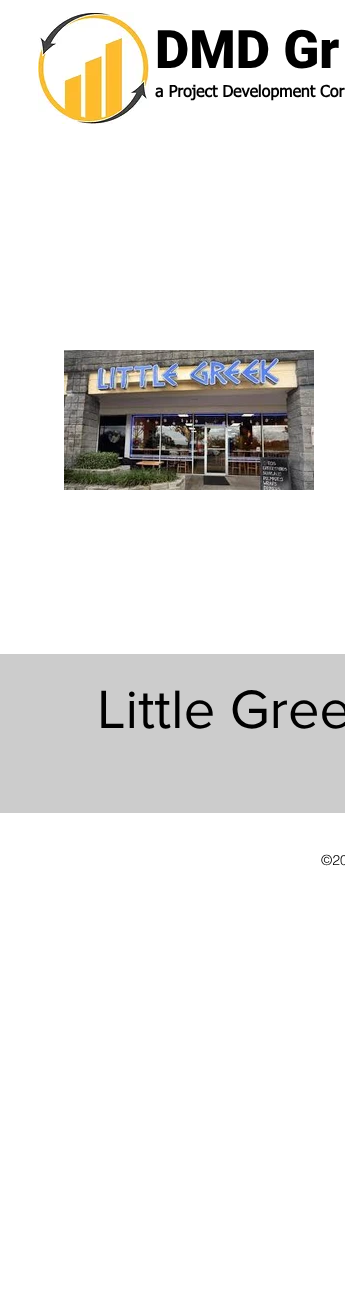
(async () => {
  const canvas = document.querySelector("canvas");
  canvas.width = 345;
  canvas.height = 1307;
  const ctx = canvas.getContext("2d");
  ctx.miterLimit = 4;
  ctx.fontKerning = "normal";
  async function loadImage(src) {
    const img = new Image();
    img.src = src;
    await img.decode();
    return img;
  }

  ctx.fillStyle = "#ffffff";
  ctx.fillRect(0, 0, 345, 1307);
  ctx.drawImage(await loadImage("img/1.png"), 38, 12, 111, 112);
  ctx.drawImage(await loadImage("img/2.png"), 64, 350, 250, 140);
  ctx.fillStyle = "#cccccc";
  ctx.fillRect(0, 654, 345, 159);
  ctx.font = "900 53px Roboto";
  ctx.fillStyle = "#000000";
  ctx.fillText("DMD Gr", 155, 68);
  ctx.font = "bold 16px tahoma";
  ctx.fillText("a Project Development Cor", 155, 97);
  ctx.font = "56px 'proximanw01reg'";
  ctx.fillText("Little Gree", 97, 728);
  ctx.font = "300 14px helvetica";
  ctx.fillText("©20", 321, 865);
})();
